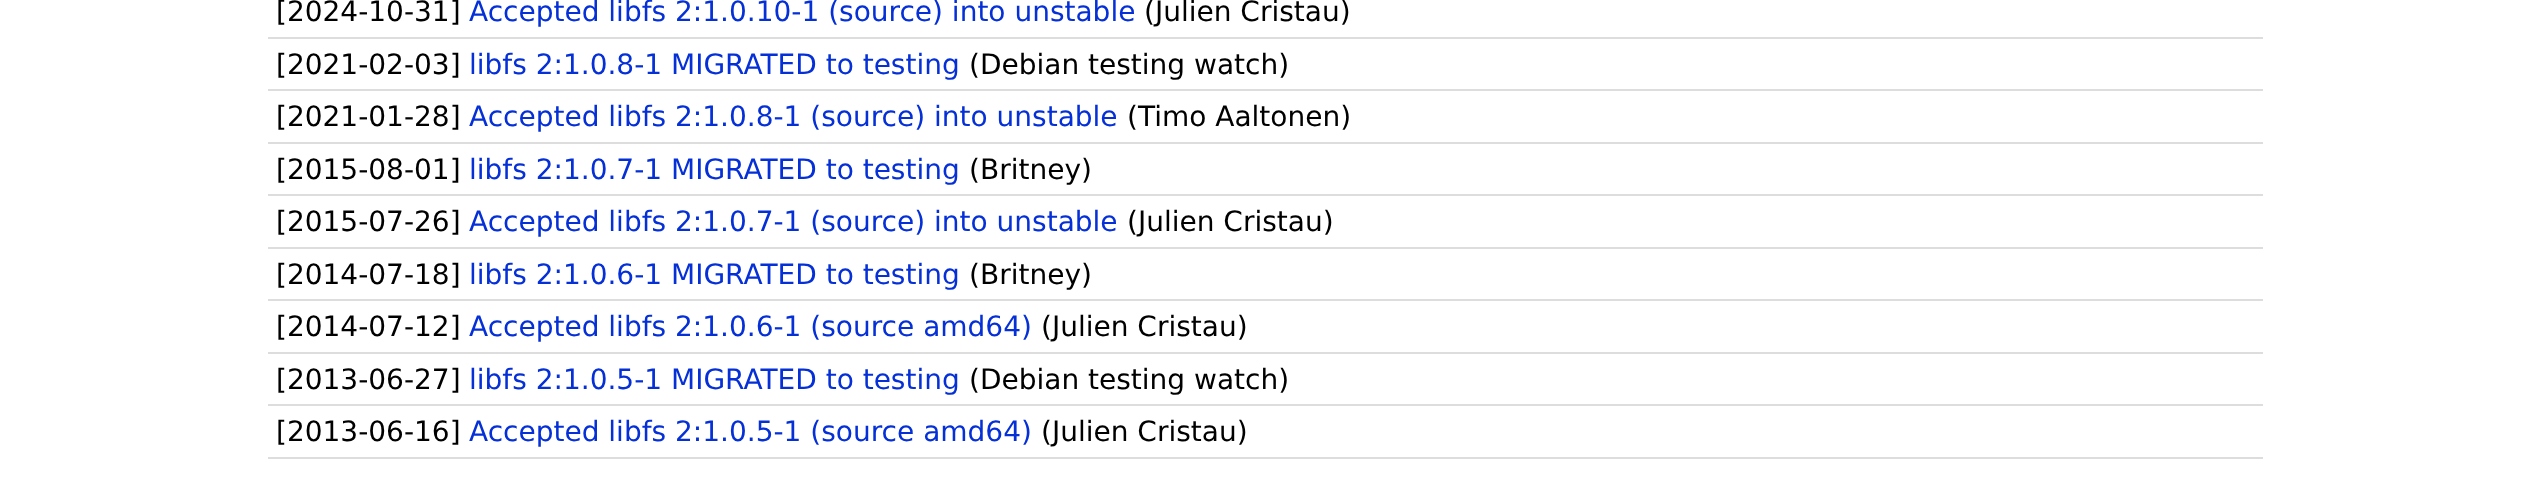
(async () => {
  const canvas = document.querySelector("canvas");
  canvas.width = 2528;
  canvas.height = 480;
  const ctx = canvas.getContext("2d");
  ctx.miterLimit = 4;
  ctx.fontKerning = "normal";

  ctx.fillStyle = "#ffffff";
  ctx.fillRect(0, 0, 2528, 480);
  for (const [x, y, w, h, color] of [
    [268, 37, 1995, 2, "#dddddd"],
    [268, 89, 1995, 2, "#dddddd"],
    [268, 142, 1995, 2, "#dddddd"],
    [268, 194, 1995, 2, "#dddddd"],
    [268, 247, 1995, 2, "#dddddd"],
    [268, 299, 1995, 2, "#dddddd"],
    [268, 352, 1995, 2, "#dddddd"],
    [268, 404, 1995, 2, "#dddddd"],
    [268, 457, 1995, 2, "#dddddd"],
  ]) {
    ctx.fillStyle = color;
    ctx.fillRect(x, y, w, h);
  }
  ctx.font = "28px DejaVu Sans";
  ctx.fillStyle = "#000000";
  ctx.fillText("[2024-10-31]", 276, 21);
  ctx.fillStyle = "#0530d7";
  ctx.fillText("Accepted libfs 2:1.0.10-1 (source) into unstable", 469, 21);
  ctx.fillStyle = "#000000";
  ctx.fillText("(Julien Cristau)", 1144, 21);
  ctx.fillText("[2021-02-03]", 276, 74);
  ctx.fillStyle = "#0530d7";
  ctx.fillText("libfs 2:1.0.8-1 MIGRATED to testing", 469, 74);
  ctx.fillStyle = "#000000";
  ctx.fillText("(Debian testing watch)", 969, 74);
  ctx.fillText("[2021-01-28]", 276, 126);
  ctx.fillStyle = "#0530d7";
  ctx.fillText("Accepted libfs 2:1.0.8-1 (source) into unstable", 469, 126);
  ctx.fillStyle = "#000000";
  ctx.fillText("(Timo Aaltonen)", 1127, 126);
  ctx.fillText("[2015-08-01]", 276, 179);
  ctx.fillStyle = "#0530d7";
  ctx.fillText("libfs 2:1.0.7-1 MIGRATED to testing", 469, 179);
  ctx.fillStyle = "#000000";
  ctx.fillText("(Britney)", 969, 179);
  ctx.fillText("[2015-07-26]", 276, 231);
  ctx.fillStyle = "#0530d7";
  ctx.fillText("Accepted libfs 2:1.0.7-1 (source) into unstable", 469, 231);
  ctx.fillStyle = "#000000";
  ctx.fillText("(Julien Cristau)", 1127, 231);
  ctx.fillText("[2014-07-18]", 276, 284);
  ctx.fillStyle = "#0530d7";
  ctx.fillText("libfs 2:1.0.6-1 MIGRATED to testing", 469, 284);
  ctx.fillStyle = "#000000";
  ctx.fillText("(Britney)", 969, 284);
  ctx.fillText("[2014-07-12]", 276, 336);
  ctx.fillStyle = "#0530d7";
  ctx.fillText("Accepted libfs 2:1.0.6-1 (source amd64)", 469, 336);
  ctx.fillStyle = "#000000";
  ctx.fillText("(Julien Cristau)", 1041, 336);
  ctx.fillText("[2013-06-27]", 276, 389);
  ctx.fillStyle = "#0530d7";
  ctx.fillText("libfs 2:1.0.5-1 MIGRATED to testing", 469, 389);
  ctx.fillStyle = "#000000";
  ctx.fillText("(Debian testing watch)", 969, 389);
  ctx.fillText("[2013-06-16]", 276, 441);
  ctx.fillStyle = "#0530d7";
  ctx.fillText("Accepted libfs 2:1.0.5-1 (source amd64)", 469, 441);
  ctx.fillStyle = "#000000";
  ctx.fillText("(Julien Cristau)", 1041, 441);
})();
